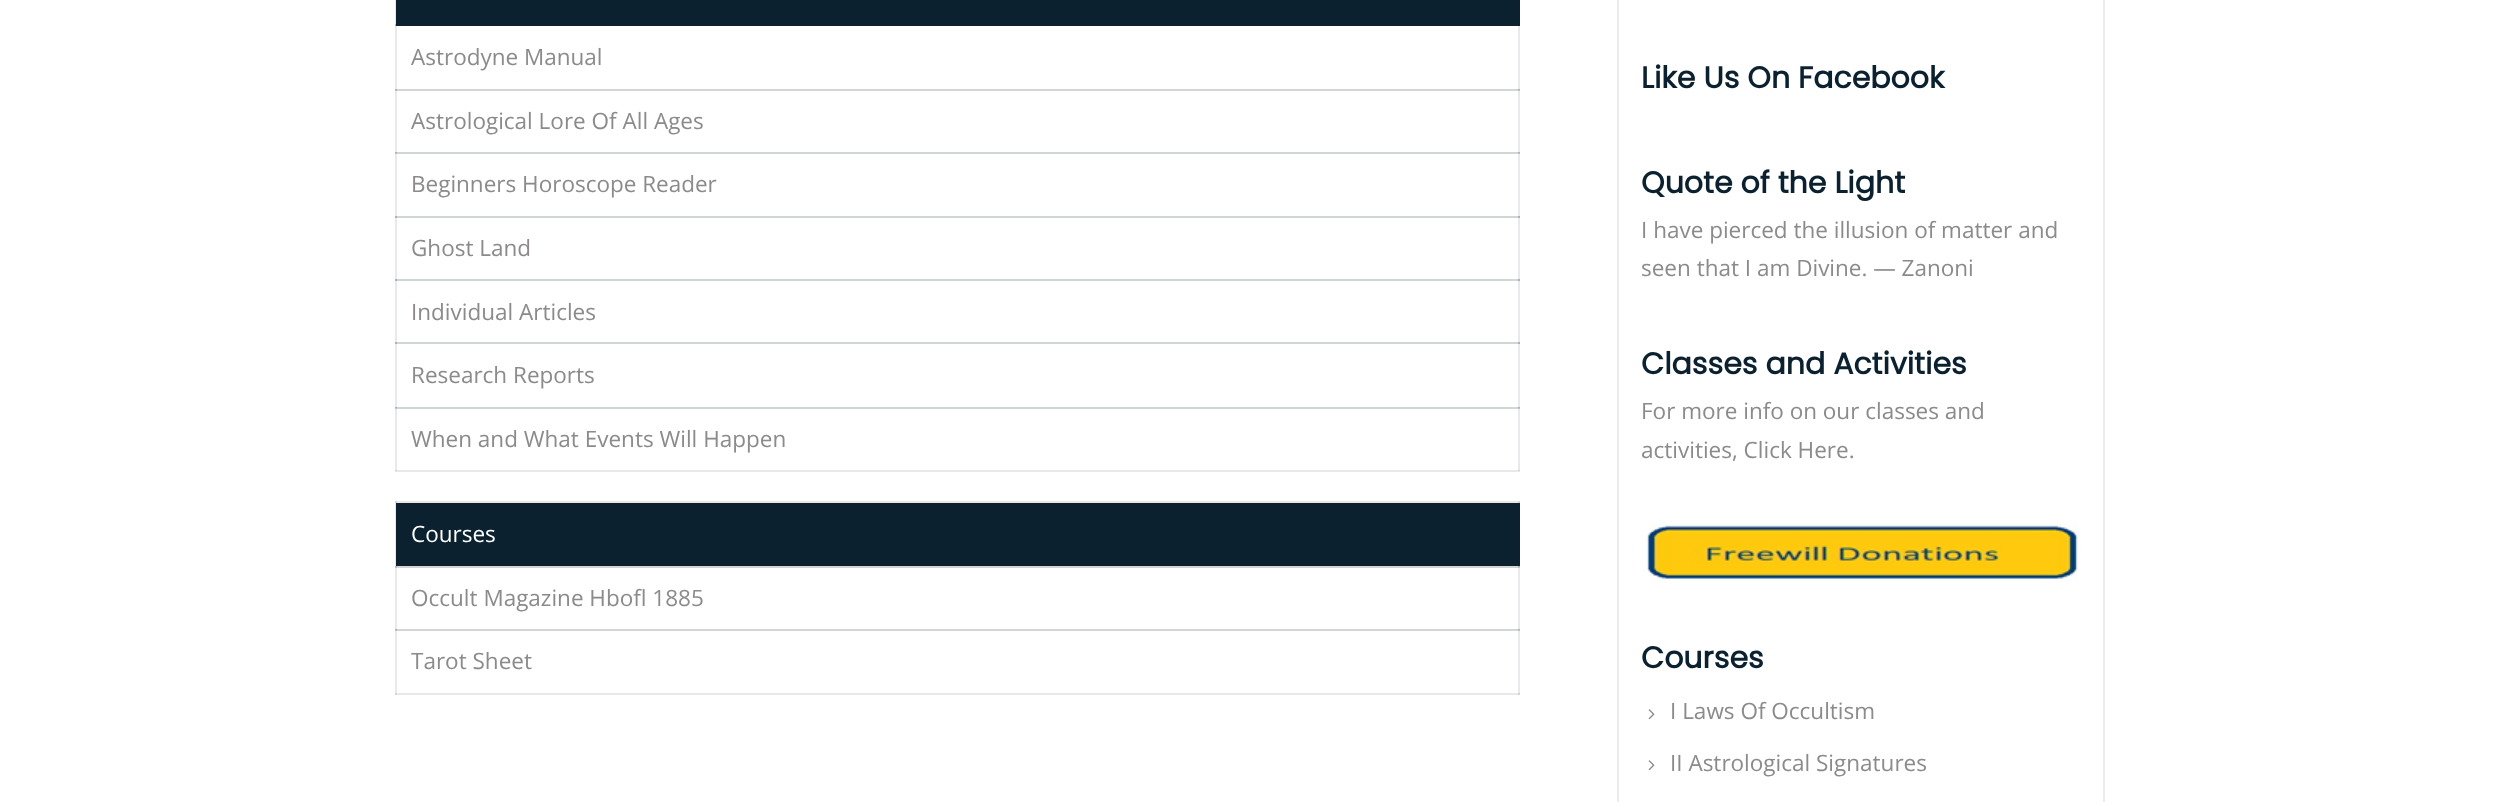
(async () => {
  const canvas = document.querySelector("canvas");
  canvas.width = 2499;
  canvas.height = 802;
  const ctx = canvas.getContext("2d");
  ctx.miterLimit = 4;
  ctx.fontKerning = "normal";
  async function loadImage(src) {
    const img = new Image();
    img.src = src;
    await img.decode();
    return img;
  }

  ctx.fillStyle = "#ffffff";
  ctx.fillRect(0, 0, 2499, 802);
  for (const [x, y, w, h, color] of [
    [395, 501, 1, 66, "#e7e9ea"],
    [395, 566, 2, 129, "#e7e9ea"],
    [1518, 566, 2, 64, "#e7e9ea"],
    [395, 693, 1125, 2, "#e7e9ea"],
    [395, 693, 2, 2, "#d1d5d7"],
    [1518, 629, 2, 66, "#e7e9ea"],
    [1518, 693, 2, 2, "#d1d5d7"],
    [395, 0, 1, 26, "#e7e9ea"],
    [395, 24, 2, 447, "#e7e9ea"],
    [1518, 24, 2, 384, "#e7e9ea"],
    [395, 24, 2, 2, "#abb3b7"],
    [395, 470, 1125, 2, "#e7e9ea"],
    [395, 470, 2, 1, "#d1d5d7"],
    [1518, 407, 2, 64, "#e7e9ea"],
    [1518, 470, 2, 1, "#d1d5d7"],
    [397, 0, 1123, 24, "#0b212f"],
    [396, 0, 1, 26, "#0b212f"],
    [396, 24, 1124, 2, "#0b212f"],
    [395, 89, 1125, 2, "#d1d5d7"],
    [395, 90, 2, 1, "#bdc3c6"],
    [395, 89, 2, 1, "#abb3b7"],
    [1518, 90, 2, 1, "#bdc3c6"],
    [1518, 89, 2, 1, "#abb3b7"],
    [395, 152, 1125, 2, "#d1d5d7"],
    [395, 153, 2, 1, "#bdc3c6"],
    [395, 152, 2, 1, "#abb3b7"],
    [1518, 153, 2, 1, "#bdc3c6"],
    [1518, 152, 2, 1, "#abb3b7"],
    [395, 216, 1125, 2, "#d1d5d7"],
    [395, 216, 2, 2, "#abb3b7"],
    [1518, 216, 2, 2, "#abb3b7"],
    [395, 279, 1125, 2, "#d1d5d7"],
    [395, 279, 2, 2, "#abb3b7"],
    [1518, 279, 2, 2, "#abb3b7"],
    [395, 342, 1125, 2, "#d1d5d7"],
    [395, 342, 2, 2, "#abb3b7"],
    [1518, 342, 2, 2, "#abb3b7"],
    [395, 407, 1125, 2, "#d1d5d7"],
    [395, 408, 2, 1, "#bdc3c6"],
    [395, 407, 2, 1, "#abb3b7"],
    [1518, 408, 2, 1, "#bdc3c6"],
    [1518, 407, 2, 1, "#abb3b7"],
    [396, 503, 1124, 63, "#0b212f"],
    [395, 501, 1125, 2, "#e7e9ea"],
    [395, 501, 2, 2, "#d1d5d7"],
    [1518, 501, 2, 2, "#d1d5d7"],
    [395, 566, 1125, 2, "#d1d5d7"],
    [395, 567, 2, 1, "#bdc3c6"],
    [395, 566, 2, 1, "#abb3b7"],
    [1518, 567, 2, 1, "#bdc3c6"],
    [1518, 566, 2, 1, "#abb3b7"],
    [395, 629, 1125, 2, "#d1d5d7"],
    [395, 630, 2, 1, "#bdc3c6"],
    [395, 629, 2, 1, "#abb3b7"],
    [1518, 630, 2, 1, "#bdc3c6"],
    [1518, 629, 2, 1, "#abb3b7"],
  ]) {
    ctx.fillStyle = color;
    ctx.fillRect(x, y, w, h);
  }
  ctx.strokeStyle = "#ececec";
  ctx.lineWidth = 2;
  ctx.strokeRect(1618, -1, 486, 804);
  ctx.drawImage(await loadImage("img/1.png"), 1641, 523, 437, 58);
  ctx.drawImage(await loadImage("img/2.png"), 1648, 709, 7, 11);
  ctx.drawImage(await loadImage("img/2.png"), 1648, 760, 7, 11);
  ctx.font = "22.5px Open Sans";
  ctx.fillStyle = "#8c8a8a";
  for (const [text, x, y] of [
    ["Astrodyne Manual", 411, 65],
    ["Astrological Lore Of All Ages", 411, 129],
    ["Beginners Horoscope Reader", 411, 192],
    ["Ghost Land", 411, 256],
    ["Individual Articles", 411, 320],
    ["Research Reports", 411, 383],
    ["When and What Events Will Happen", 411, 447],
  ]) {
    ctx.fillText(text, x, y);
  }
  ctx.fillStyle = "#ffffff";
  ctx.fillText("Courses", 411, 542);
  ctx.fillStyle = "#8c8a8a";
  ctx.fillText("Occult Magazine Hbofl 1885", 411, 606);
  ctx.fillText("Tarot Sheet", 411, 669);
  ctx.font = "bold 30px Poppins";
  ctx.fillStyle = "#0b212f";
  ctx.fillText("Like Us On Facebook", 1641, 88);
  ctx.fillText("Quote of the Light", 1641, 193);
  ctx.font = "22.5px Open Sans";
  ctx.fillStyle = "#8c8a8a";
  ctx.fillText("I have pierced the illusion of matter and", 1641, 238);
  ctx.fillText("seen that I am Divine. — Zanoni", 1641, 276);
  ctx.font = "bold 30px Poppins";
  ctx.fillStyle = "#0b212f";
  ctx.fillText("Classes and Activities", 1641, 374);
  ctx.font = "22.5px Open Sans";
  ctx.fillStyle = "#8c8a8a";
  ctx.fillText("For more info on our classes and", 1641, 419);
  ctx.fillText("activities, Click Here.", 1641, 458);
  ctx.font = "bold 30px Poppins";
  ctx.fillStyle = "#0b212f";
  ctx.fillText("Courses", 1641, 668);
  ctx.font = "22.5px Open Sans";
  ctx.fillStyle = "#8c8a8a";
  ctx.fillText("I Laws Of Occultism", 1670, 719);
  ctx.fillText("II Astrological Signatures", 1670, 771);
})();
